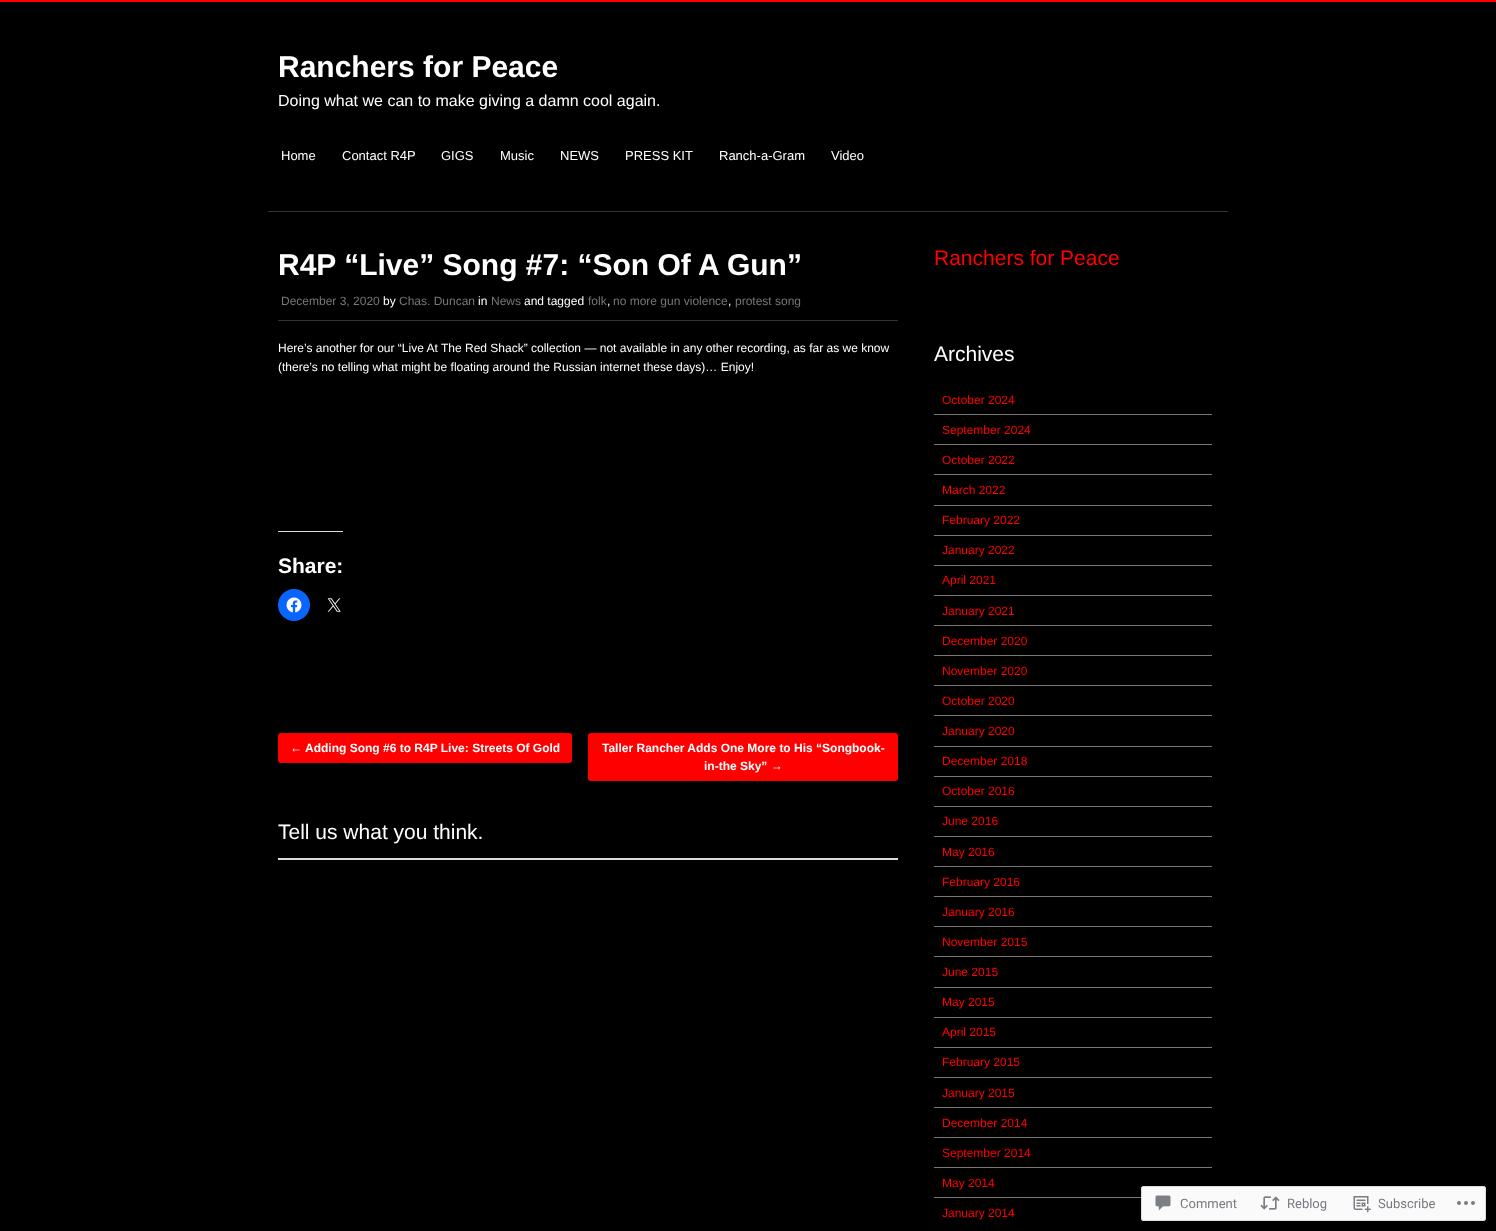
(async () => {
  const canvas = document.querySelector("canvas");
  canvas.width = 1496;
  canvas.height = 1231;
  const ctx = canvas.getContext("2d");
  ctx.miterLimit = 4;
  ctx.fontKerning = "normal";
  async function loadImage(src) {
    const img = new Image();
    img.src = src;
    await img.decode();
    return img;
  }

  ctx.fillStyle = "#000000";
  ctx.fillRect(0, 0, 1496, 1231);
  for (const [x, y, w, h, color] of [
    [0, 0, 1496, 2, "#ff0000"],
    [268, 211, 960, 1, "#333333"],
    [278, 320, 620, 1, "#333333"],
    [278, 531, 65, 1, "#dcdcde"],
  ]) {
    ctx.fillStyle = color;
    ctx.fillRect(x, y, w, h);
  }
  ctx.fillStyle = "#0866ff";
  ctx.beginPath();
  ctx.arc(294, 605, 16, 0, Math.PI * 2);
  ctx.fill();
  ctx.drawImage(await loadImage("img/1.png"), 286, 597, 16, 16);
  ctx.drawImage(await loadImage("img/2.png"), 327, 598, 14, 14);
  ctx.fillStyle = "#ff0000";
  ctx.beginPath();
  ctx.roundRect(278, 733, 294, 30, 3);
  ctx.fill();
  ctx.beginPath();
  ctx.roundRect(588, 733, 310, 48, 3);
  ctx.fill();
  for (const [x, y, w, h, color] of [
    [278, 858, 620, 2, "#dcdcde"],
    [934, 414, 278, 1, "#777777"],
    [934, 444, 278, 1, "#777777"],
    [934, 474, 278, 1, "#777777"],
    [934, 505, 278, 1, "#777777"],
    [934, 535, 278, 1, "#777777"],
    [934, 565, 278, 1, "#777777"],
    [934, 595, 278, 1, "#777777"],
    [934, 625, 278, 1, "#777777"],
    [934, 655, 278, 1, "#777777"],
    [934, 685, 278, 1, "#777777"],
    [934, 715, 278, 1, "#777777"],
    [934, 746, 278, 1, "#777777"],
    [934, 776, 278, 1, "#777777"],
    [934, 806, 278, 1, "#777777"],
    [934, 836, 278, 1, "#777777"],
    [934, 866, 278, 1, "#777777"],
    [934, 896, 278, 1, "#777777"],
    [934, 926, 278, 1, "#777777"],
    [934, 956, 278, 1, "#777777"],
    [934, 987, 278, 1, "#777777"],
    [934, 1017, 278, 1, "#777777"],
    [934, 1047, 278, 1, "#777777"],
    [934, 1077, 278, 1, "#777777"],
    [934, 1107, 278, 1, "#777777"],
    [934, 1137, 278, 1, "#777777"],
    [934, 1167, 278, 1, "#777777"],
    [934, 1197, 278, 1, "#777777"],
  ]) {
    ctx.fillStyle = color;
    ctx.fillRect(x, y, w, h);
  }
  ctx.fillStyle = "rgba(255, 255, 255, 0.98)";
  ctx.beginPath();
  ctx.roundRect(1141, 1186, 345, 35, 3);
  ctx.fill();
  ctx.beginPath();
  ctx.roundRect(1141.5, 1186.5, 344, 34, 2.5);
  ctx.strokeStyle = "rgba(220, 220, 222, 0.98)";
  ctx.stroke();
  ctx.drawImage(await loadImage("img/3.png"), 1155, 1195, 16, 16);
  ctx.drawImage(await loadImage("img/4.png"), 1260, 1196, 20, 14);
  ctx.drawImage(await loadImage("img/5.png"), 1353, 1196, 18, 17);
  ctx.drawImage(await loadImage("img/6.png"), 1457, 1201, 18, 4);
  ctx.font = "bold 30px Liberation Sans";
  ctx.fillStyle = "#ffffff";
  ctx.fillText("Ranchers for Peace", 278, 77);
  ctx.font = "16px Liberation Sans";
  ctx.fillText("Doing what we can to make giving a damn cool again.", 278, 106);
  ctx.font = "13px Liberation Sans";
  for (const [text, x, y] of [
    ["Home", 281, 160],
    ["Contact R4P", 342, 160],
    ["GIGS", 441, 160],
    ["Music", 500, 160],
    ["NEWS", 560, 160],
    ["PRESS KIT", 625, 160],
    ["Ranch-a-Gram", 719, 160],
    ["Video", 831, 160],
  ]) {
    ctx.fillText(text, x, y);
  }
  ctx.font = "bold 30px Liberation Sans";
  ctx.fillText("R4P “Live” Song #7: “Son Of A Gun”", 278, 275);
  ctx.font = "12px Liberation Sans";
  ctx.fillStyle = "#777777";
  ctx.fillText("December 3, 2020", 281, 305);
  ctx.fillStyle = "#ffffff";
  ctx.fillText("by", 383, 305);
  ctx.fillStyle = "#777777";
  ctx.fillText("Chas. Duncan", 399, 305);
  ctx.fillStyle = "#ffffff";
  ctx.fillText("in", 478, 305);
  ctx.fillStyle = "#777777";
  ctx.fillText("News", 491, 305);
  ctx.fillStyle = "#ffffff";
  ctx.fillText("and tagged", 524, 305);
  ctx.fillStyle = "#777777";
  ctx.fillText("folk", 588, 305);
  ctx.fillStyle = "#ffffff";
  ctx.fillText(",", 607, 305);
  ctx.fillStyle = "#777777";
  ctx.fillText("no more gun violence", 613, 305);
  ctx.fillStyle = "#ffffff";
  ctx.fillText(",", 728, 305);
  ctx.fillStyle = "#777777";
  ctx.fillText("protest song", 735, 305);
  ctx.fillStyle = "#ffffff";
  ctx.fillText("Here’s another for our “Live At The Red Shack” collection — not available in any other recording, as far as we know", 278, 352);
  ctx.fillText("(there’s no telling what might be floating around the Russian internet these days)… Enjoy!", 278, 371);
  ctx.font = "bold 21px Liberation Sans";
  ctx.fillText("Share:", 278, 573);
  ctx.font = "bold 12px Liberation Sans";
  for (const [text, x, y] of [
    ["←", 290, 752],
    ["Adding Song #6 to R4P Live: Streets Of Gold", 305, 752],
    ["Taller Rancher Adds One More to His “Songbook-", 602, 752],
    ["in-the Sky” →", 704, 770],
  ]) {
    ctx.fillText(text, x, y);
  }
  ctx.font = "21px Liberation Sans";
  ctx.fillText("Tell us what you think.", 278, 839);
  ctx.fillStyle = "#ff0000";
  ctx.fillText("Ranchers for Peace", 934, 265);
  ctx.fillStyle = "#ffffff";
  ctx.fillText("Archives", 934, 361);
  ctx.font = "12px Liberation Sans";
  ctx.fillStyle = "#ff0000";
  for (const [text, x, y] of [
    ["October 2024", 942, 404],
    ["September 2024", 942, 434],
    ["October 2022", 942, 464],
    ["March 2022", 942, 494],
    ["February 2022", 942, 524],
    ["January 2022", 942, 554],
    ["April 2021", 942, 584],
    ["January 2021", 942, 615],
    ["December 2020", 942, 645],
    ["November 2020", 942, 675],
    ["October 2020", 942, 705],
    ["January 2020", 942, 735],
    ["December 2018", 942, 765],
    ["October 2016", 942, 795],
    ["June 2016", 942, 825],
    ["May 2016", 942, 856],
    ["February 2016", 942, 886],
    ["January 2016", 942, 916],
    ["November 2015", 942, 946],
    ["June 2015", 942, 976],
    ["May 2015", 942, 1006],
    ["April 2015", 942, 1036],
    ["February 2015", 942, 1066],
    ["January 2015", 942, 1097],
    ["December 2014", 942, 1127],
    ["September 2014", 942, 1157],
    ["May 2014", 942, 1187],
    ["January 2014", 942, 1217],
  ]) {
    ctx.fillText(text, x, y);
  }
  ctx.font = "13px Roboto";
  ctx.fillStyle = "#767a7f";
  for (const [text, x, y] of [
    ["Comment", 1180, 1208],
    ["Reblog", 1287, 1208],
    ["Subscribe", 1378, 1208],
  ]) {
    ctx.fillText(text, x, y);
  }
})();
